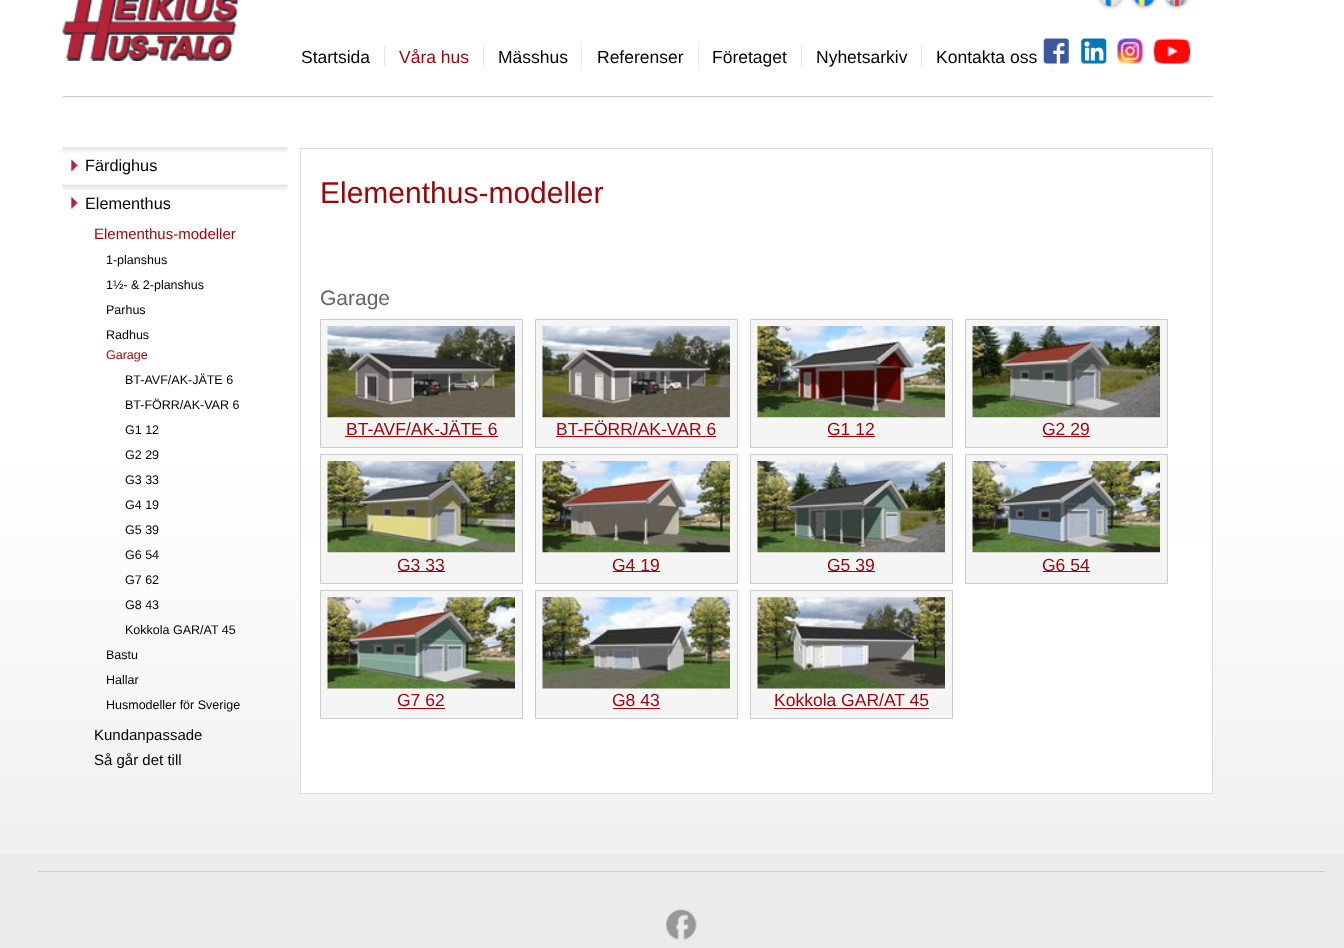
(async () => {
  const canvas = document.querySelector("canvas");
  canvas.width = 1344;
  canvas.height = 948;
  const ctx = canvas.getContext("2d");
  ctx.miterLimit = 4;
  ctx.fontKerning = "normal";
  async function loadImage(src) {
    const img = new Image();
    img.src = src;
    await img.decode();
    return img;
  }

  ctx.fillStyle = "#ebebeb";
  ctx.fillRect(0, 0, 1344, 948);
  ctx.drawImage(await loadImage("img/1.png"), 0, 0, 1344, 854);
  ctx.drawImage(await loadImage("img/2.png"), 62, 0, 176, 61);
  ctx.drawImage(await loadImage("img/3.png"), 1097, 0, 27, 10);
  ctx.drawImage(await loadImage("img/4.png"), 1131, 0, 26, 10);
  ctx.drawImage(await loadImage("img/5.png"), 1163, 0, 26, 10);
  for (const [x, y, w, h, color] of [
    [384, 46, 1, 20, "#e5e5e5"],
    [483, 46, 1, 20, "#e5e5e5"],
    [581, 46, 1, 20, "#e5e5e5"],
    [698, 46, 1, 20, "#e5e5e5"],
    [801, 46, 1, 20, "#e5e5e5"],
    [921, 46, 1, 20, "#e5e5e5"],
    [1051, 63, 1, 3, "#e5e5e5"],
  ]) {
    ctx.fillStyle = color;
    ctx.fillRect(x, y, w, h);
  }
  ctx.drawImage(await loadImage("img/6.png"), 1043, 38, 26, 26);
  ctx.drawImage(await loadImage("img/7.png"), 1081, 38, 26, 26);
  ctx.drawImage(await loadImage("img/8.png"), 1117, 38, 26, 26);
  ctx.drawImage(await loadImage("img/9.png"), 1153, 38, 37, 26);
  ctx.fillStyle = "#cccccc";
  ctx.fillRect(63, 96, 1150, 1);
  ctx.drawImage(await loadImage("img/10.png"), 62, 147, 226, 6);
  ctx.drawImage(await loadImage("img/11.png"), 71, 159, 7, 12);
  ctx.drawImage(await loadImage("img/12.png"), 62, 184, 226, 7);
  ctx.drawImage(await loadImage("img/13.png"), 71, 197, 7, 12);
  ctx.fillStyle = "#ffffff";
  ctx.fillRect(301, 537, 911, 256);
  ctx.strokeStyle = "#dddddd";
  ctx.strokeRect(300.5, 148.5, 912, 645);
  ctx.fillStyle = "#f5f5f5";
  ctx.beginPath();
  ctx.rect(320.5, 319.5, 202, 128);
  ctx.fill();
  ctx.strokeStyle = "#cccccc";
  ctx.stroke();
  ctx.drawImage(await loadImage("img/14.png"), 327, 326, 188, 92);
  ctx.fillStyle = "#99050b";
  ctx.fillRect(345, 436, 153, 1);
  ctx.fillStyle = "#f5f5f5";
  ctx.beginPath();
  ctx.rect(535.5, 319.5, 202, 128);
  ctx.fill();
  ctx.stroke();
  ctx.drawImage(await loadImage("img/15.png"), 542, 326, 188, 92);
  ctx.fillStyle = "#99050b";
  ctx.fillRect(556, 436, 160, 1);
  ctx.fillStyle = "#f5f5f5";
  ctx.beginPath();
  ctx.rect(750.5, 319.5, 202, 128);
  ctx.fill();
  ctx.stroke();
  ctx.drawImage(await loadImage("img/16.png"), 757, 326, 188, 92);
  ctx.fillStyle = "#99050b";
  ctx.fillRect(828, 436, 47, 1);
  ctx.fillStyle = "#f5f5f5";
  ctx.beginPath();
  ctx.rect(965.5, 319.5, 202, 128);
  ctx.fill();
  ctx.stroke();
  ctx.drawImage(await loadImage("img/17.png"), 972, 326, 188, 92);
  ctx.fillStyle = "#99050b";
  ctx.fillRect(1043, 436, 47, 1);
  ctx.fillStyle = "#f5f5f5";
  ctx.beginPath();
  ctx.rect(320.5, 454.5, 202, 129);
  ctx.fill();
  ctx.stroke();
  ctx.drawImage(await loadImage("img/18.png"), 327, 461, 188, 92);
  ctx.fillStyle = "#99050b";
  ctx.fillRect(398, 571, 47, 1);
  ctx.fillStyle = "#f5f5f5";
  ctx.beginPath();
  ctx.rect(535.5, 454.5, 202, 129);
  ctx.fill();
  ctx.stroke();
  ctx.drawImage(await loadImage("img/19.png"), 542, 461, 188, 92);
  ctx.fillStyle = "#99050b";
  ctx.fillRect(613, 571, 47, 1);
  ctx.fillStyle = "#f5f5f5";
  ctx.beginPath();
  ctx.rect(750.5, 454.5, 202, 129);
  ctx.fill();
  ctx.stroke();
  ctx.drawImage(await loadImage("img/20.png"), 757, 461, 188, 92);
  ctx.fillStyle = "#99050b";
  ctx.fillRect(828, 571, 47, 1);
  ctx.fillStyle = "#f5f5f5";
  ctx.beginPath();
  ctx.rect(965.5, 454.5, 202, 129);
  ctx.fill();
  ctx.stroke();
  ctx.drawImage(await loadImage("img/21.png"), 972, 461, 188, 92);
  ctx.fillStyle = "#99050b";
  ctx.fillRect(1043, 571, 47, 1);
  ctx.fillStyle = "#f5f5f5";
  ctx.beginPath();
  ctx.rect(320.5, 590.5, 202, 128);
  ctx.fill();
  ctx.stroke();
  ctx.drawImage(await loadImage("img/22.png"), 327, 597, 188, 92);
  ctx.fillStyle = "#99050b";
  ctx.fillRect(398, 708, 47, 1);
  ctx.fillStyle = "#f5f5f5";
  ctx.beginPath();
  ctx.rect(535.5, 590.5, 202, 128);
  ctx.fill();
  ctx.stroke();
  ctx.drawImage(await loadImage("img/23.png"), 542, 597, 188, 92);
  ctx.fillStyle = "#99050b";
  ctx.fillRect(613, 708, 47, 1);
  ctx.fillStyle = "#f5f5f5";
  ctx.beginPath();
  ctx.rect(750.5, 590.5, 202, 128);
  ctx.fill();
  ctx.stroke();
  ctx.drawImage(await loadImage("img/24.png"), 757, 597, 188, 92);
  ctx.fillStyle = "#99050b";
  ctx.fillRect(774, 708, 155, 1);
  ctx.fillStyle = "#cccccc";
  ctx.fillRect(38, 871, 1287, 1);
  ctx.drawImage(await loadImage("img/25.png"), 666, 909, 31, 31);
  ctx.font = "17.5px Liberation Sans";
  ctx.fillStyle = "#000000";
  ctx.fillText("Startsida", 301, 63);
  ctx.fillStyle = "#99050b";
  ctx.fillText("Våra hus", 399, 63);
  ctx.fillStyle = "#000000";
  for (const [text, x, y] of [
    ["Mässhus", 498, 63],
    ["Referenser", 597, 63],
    ["Företaget", 712, 63],
    ["Nyhetsarkiv", 816, 63],
    ["Kontakta oss", 936, 63],
  ]) {
    ctx.fillText(text, x, y);
  }
  ctx.font = "16.25px Liberation Sans";
  ctx.fillText("Färdighus", 85, 171);
  ctx.fillText("Elementhus", 85, 209);
  ctx.font = "15px Liberation Sans";
  ctx.fillStyle = "#99050b";
  ctx.fillText("Elementhus-modeller", 94, 239);
  ctx.font = "12.5px Liberation Sans";
  ctx.fillStyle = "#000000";
  for (const [text, x, y] of [
    ["1-planshus", 106, 264],
    ["1½- & 2-planshus", 106, 289],
    ["Parhus", 106, 314],
    ["Radhus", 106, 339],
  ]) {
    ctx.fillText(text, x, y);
  }
  ctx.fillStyle = "#99050b";
  ctx.fillText("Garage", 106, 359);
  ctx.fillStyle = "#000000";
  for (const [text, x, y] of [
    ["BT-AVF/AK-JÄTE 6", 125, 384],
    ["BT-FÖRR/AK-VAR 6", 125, 409],
    ["G1 12", 125, 434],
    ["G2 29", 125, 459],
    ["G3 33", 125, 484],
    ["G4 19", 125, 509],
    ["G5 39", 125, 534],
    ["G6 54", 125, 559],
    ["G7 62", 125, 584],
    ["G8 43", 125, 609],
    ["Kokkola GAR/AT 45", 125, 634],
    ["Bastu", 106, 659],
    ["Hallar", 106, 684],
    ["Husmodeller för Sverige", 106, 709],
  ]) {
    ctx.fillText(text, x, y);
  }
  ctx.font = "15px Liberation Sans";
  ctx.fillText("Kundanpassade", 94, 740);
  ctx.fillText("Så går det till", 94, 765);
  ctx.font = "30px Liberation Sans";
  ctx.fillStyle = "#99050b";
  ctx.fillText("Elementhus-modeller", 320, 203);
  ctx.font = "21px Liberation Sans";
  ctx.fillStyle = "#666666";
  ctx.fillText("Garage", 320, 305);
  ctx.font = "17.5px Liberation Sans";
  ctx.fillStyle = "#99050b";
  for (const [text, x, y] of [
    ["BT-AVF/AK-JÄTE 6", 346, 435],
    ["BT-FÖRR/AK-VAR 6", 556, 435],
    ["G1 12", 827, 435],
    ["G2 29", 1042, 435],
    ["G3 33", 397, 571],
    ["G4 19", 612, 571],
    ["G5 39", 827, 571],
    ["G6 54", 1042, 571],
    ["G7 62", 397, 706],
    ["G8 43", 612, 706],
    ["Kokkola GAR/AT 45", 774, 706],
  ]) {
    ctx.fillText(text, x, y);
  }
})();
